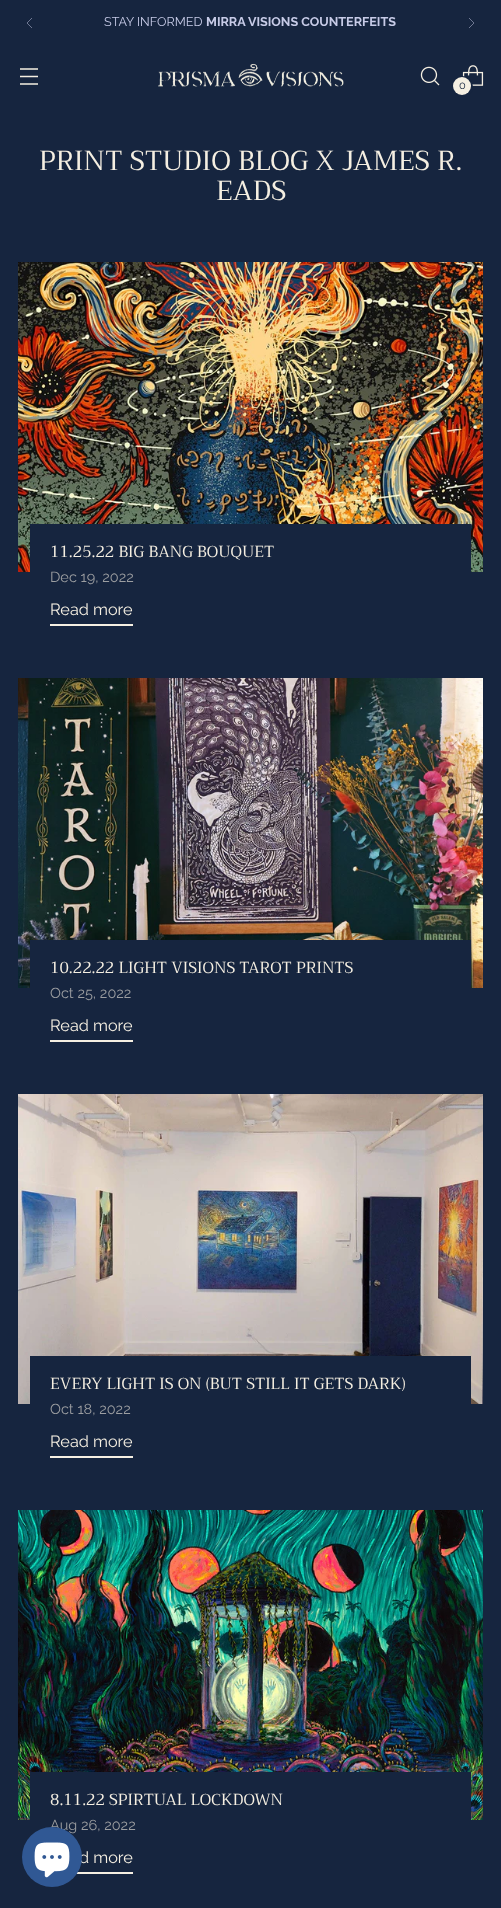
(async () => {
  const canvas = document.querySelector("canvas");
  canvas.width = 501;
  canvas.height = 1908;
  const ctx = canvas.getContext("2d");
  ctx.miterLimit = 4;
  ctx.fontKerning = "normal";
  async function loadImage(src) {
    const img = new Image();
    img.src = src;
    await img.decode();
    return img;
  }
  let path;

  ctx.fillStyle = "#16253f";
  ctx.fillRect(0, 0, 501, 1908);
  path = new Path2D("M32 18L27 23L32 28");
  ctx.strokeStyle = "#6f7893";
  ctx.stroke(path);
  path = new Path2D("M469 28L474 23L469 18");
  ctx.stroke(path);
  path = new Path2D("M20 76.5H38M20 69H38M20 84H38");
  ctx.strokeStyle = "#f5efe2";
  ctx.lineWidth = 1.3;
  ctx.stroke(path);
  ctx.drawImage(await loadImage("img/1.png"), 158, 63, 186, 24);
  ctx.drawImage(await loadImage("img/2.png"), 420, 66, 20, 20);
  ctx.drawImage(await loadImage("img/3.png"), 462, 65, 22, 21);
  ctx.beginPath();
  ctx.arc(462.5, 86.5, 9.5, 0, Math.PI * 2);
  ctx.strokeStyle = "#16253f";
  ctx.lineWidth = 2;
  ctx.stroke();
  ctx.fillStyle = "#f5efe2";
  ctx.beginPath();
  ctx.arc(462, 86, 9, 0, Math.PI * 2);
  ctx.fill();
  ctx.drawImage(await loadImage("img/4.png"), 18, 262, 465, 310);
  ctx.fillStyle = "#16253f";
  ctx.fillRect(30, 524, 441, 48);
  ctx.fillStyle = "#f5efe2";
  ctx.fillRect(50, 624, 83, 2);
  ctx.drawImage(await loadImage("img/5.png"), 18, 678, 465, 310);
  ctx.fillStyle = "#16253f";
  ctx.fillRect(30, 940, 441, 48);
  ctx.fillStyle = "#f5efe2";
  ctx.fillRect(50, 1040, 83, 2);
  ctx.drawImage(await loadImage("img/6.png"), 18, 1094, 465, 310);
  ctx.fillStyle = "#16253f";
  ctx.fillRect(30, 1356, 441, 48);
  ctx.fillStyle = "#f5efe2";
  ctx.fillRect(50, 1456, 83, 2);
  ctx.drawImage(await loadImage("img/7.png"), 18, 1510, 465, 310);
  ctx.fillStyle = "#16253f";
  ctx.fillRect(30, 1772, 441, 48);
  ctx.fillStyle = "#f5efe2";
  ctx.fillRect(76, 1872, 57, 2);
  ctx.font = "100 12.6px Raleway";
  ctx.fillStyle = "#c7cbe7";
  ctx.fillText("STAY INFORMED", 104, 26);
  ctx.font = "bold 12.6px Raleway";
  ctx.fillText("MIRRA VISIONS COUNTERFEITS", 206, 26);
  ctx.font = "100 11px Raleway";
  ctx.fillStyle = "#16253f";
  ctx.fillText("0", 459, 89);
  ctx.font = "27.5px Trirong";
  ctx.fillStyle = "#f5efe2";
  ctx.fillText("PRINT STUDIO BLOG X JAMES R.", 39, 170);
  ctx.fillText("EADS", 216, 200);
  ctx.font = "16px Trirong";
  ctx.fillText("11.25.22 BIG BANG BOUQUET", 50, 557);
  ctx.font = "100 14.5px Raleway";
  ctx.fillStyle = "#9c9ea1";
  ctx.fillText("Dec 19, 2022", 50, 582);
  ctx.font = "100 16.25px Raleway";
  ctx.fillStyle = "#f5efe2";
  ctx.fillText("Read more", 50, 615);
  ctx.font = "16px Trirong";
  ctx.fillText("10.22.22 LIGHT VISIONS TAROT PRINTS", 50, 973);
  ctx.font = "100 14.5px Raleway";
  ctx.fillStyle = "#9c9ea1";
  ctx.fillText("Oct 25, 2022", 50, 998);
  ctx.font = "100 16.25px Raleway";
  ctx.fillStyle = "#f5efe2";
  ctx.fillText("Read more", 50, 1031);
  ctx.font = "16px Trirong";
  ctx.fillText("EVERY LIGHT IS ON (BUT STILL IT GETS DARK)", 50, 1389);
  ctx.font = "100 14.5px Raleway";
  ctx.fillStyle = "#9c9ea1";
  ctx.fillText("Oct 18, 2022", 50, 1414);
  ctx.font = "100 16.25px Raleway";
  ctx.fillStyle = "#f5efe2";
  ctx.fillText("Read more", 50, 1447);
  ctx.font = "16px Trirong";
  ctx.fillText("8.11.22 SPIRTUAL LOCKDOWN", 50, 1805);
  ctx.font = "100 14.5px Raleway";
  ctx.fillStyle = "#9c9ea1";
  ctx.fillText("Aug 26, 2022", 50, 1830);
  ctx.font = "100 16.25px Raleway";
  ctx.fillStyle = "#f5efe2";
  ctx.fillText("d more", 79, 1863);
  ctx.fillStyle = "#305894";
  ctx.beginPath();
  ctx.arc(52, 1857, 30, 0, Math.PI * 2);
  ctx.fill();
  ctx.drawImage(await loadImage("img/8.png"), 34, 1842, 36, 36);
})();
